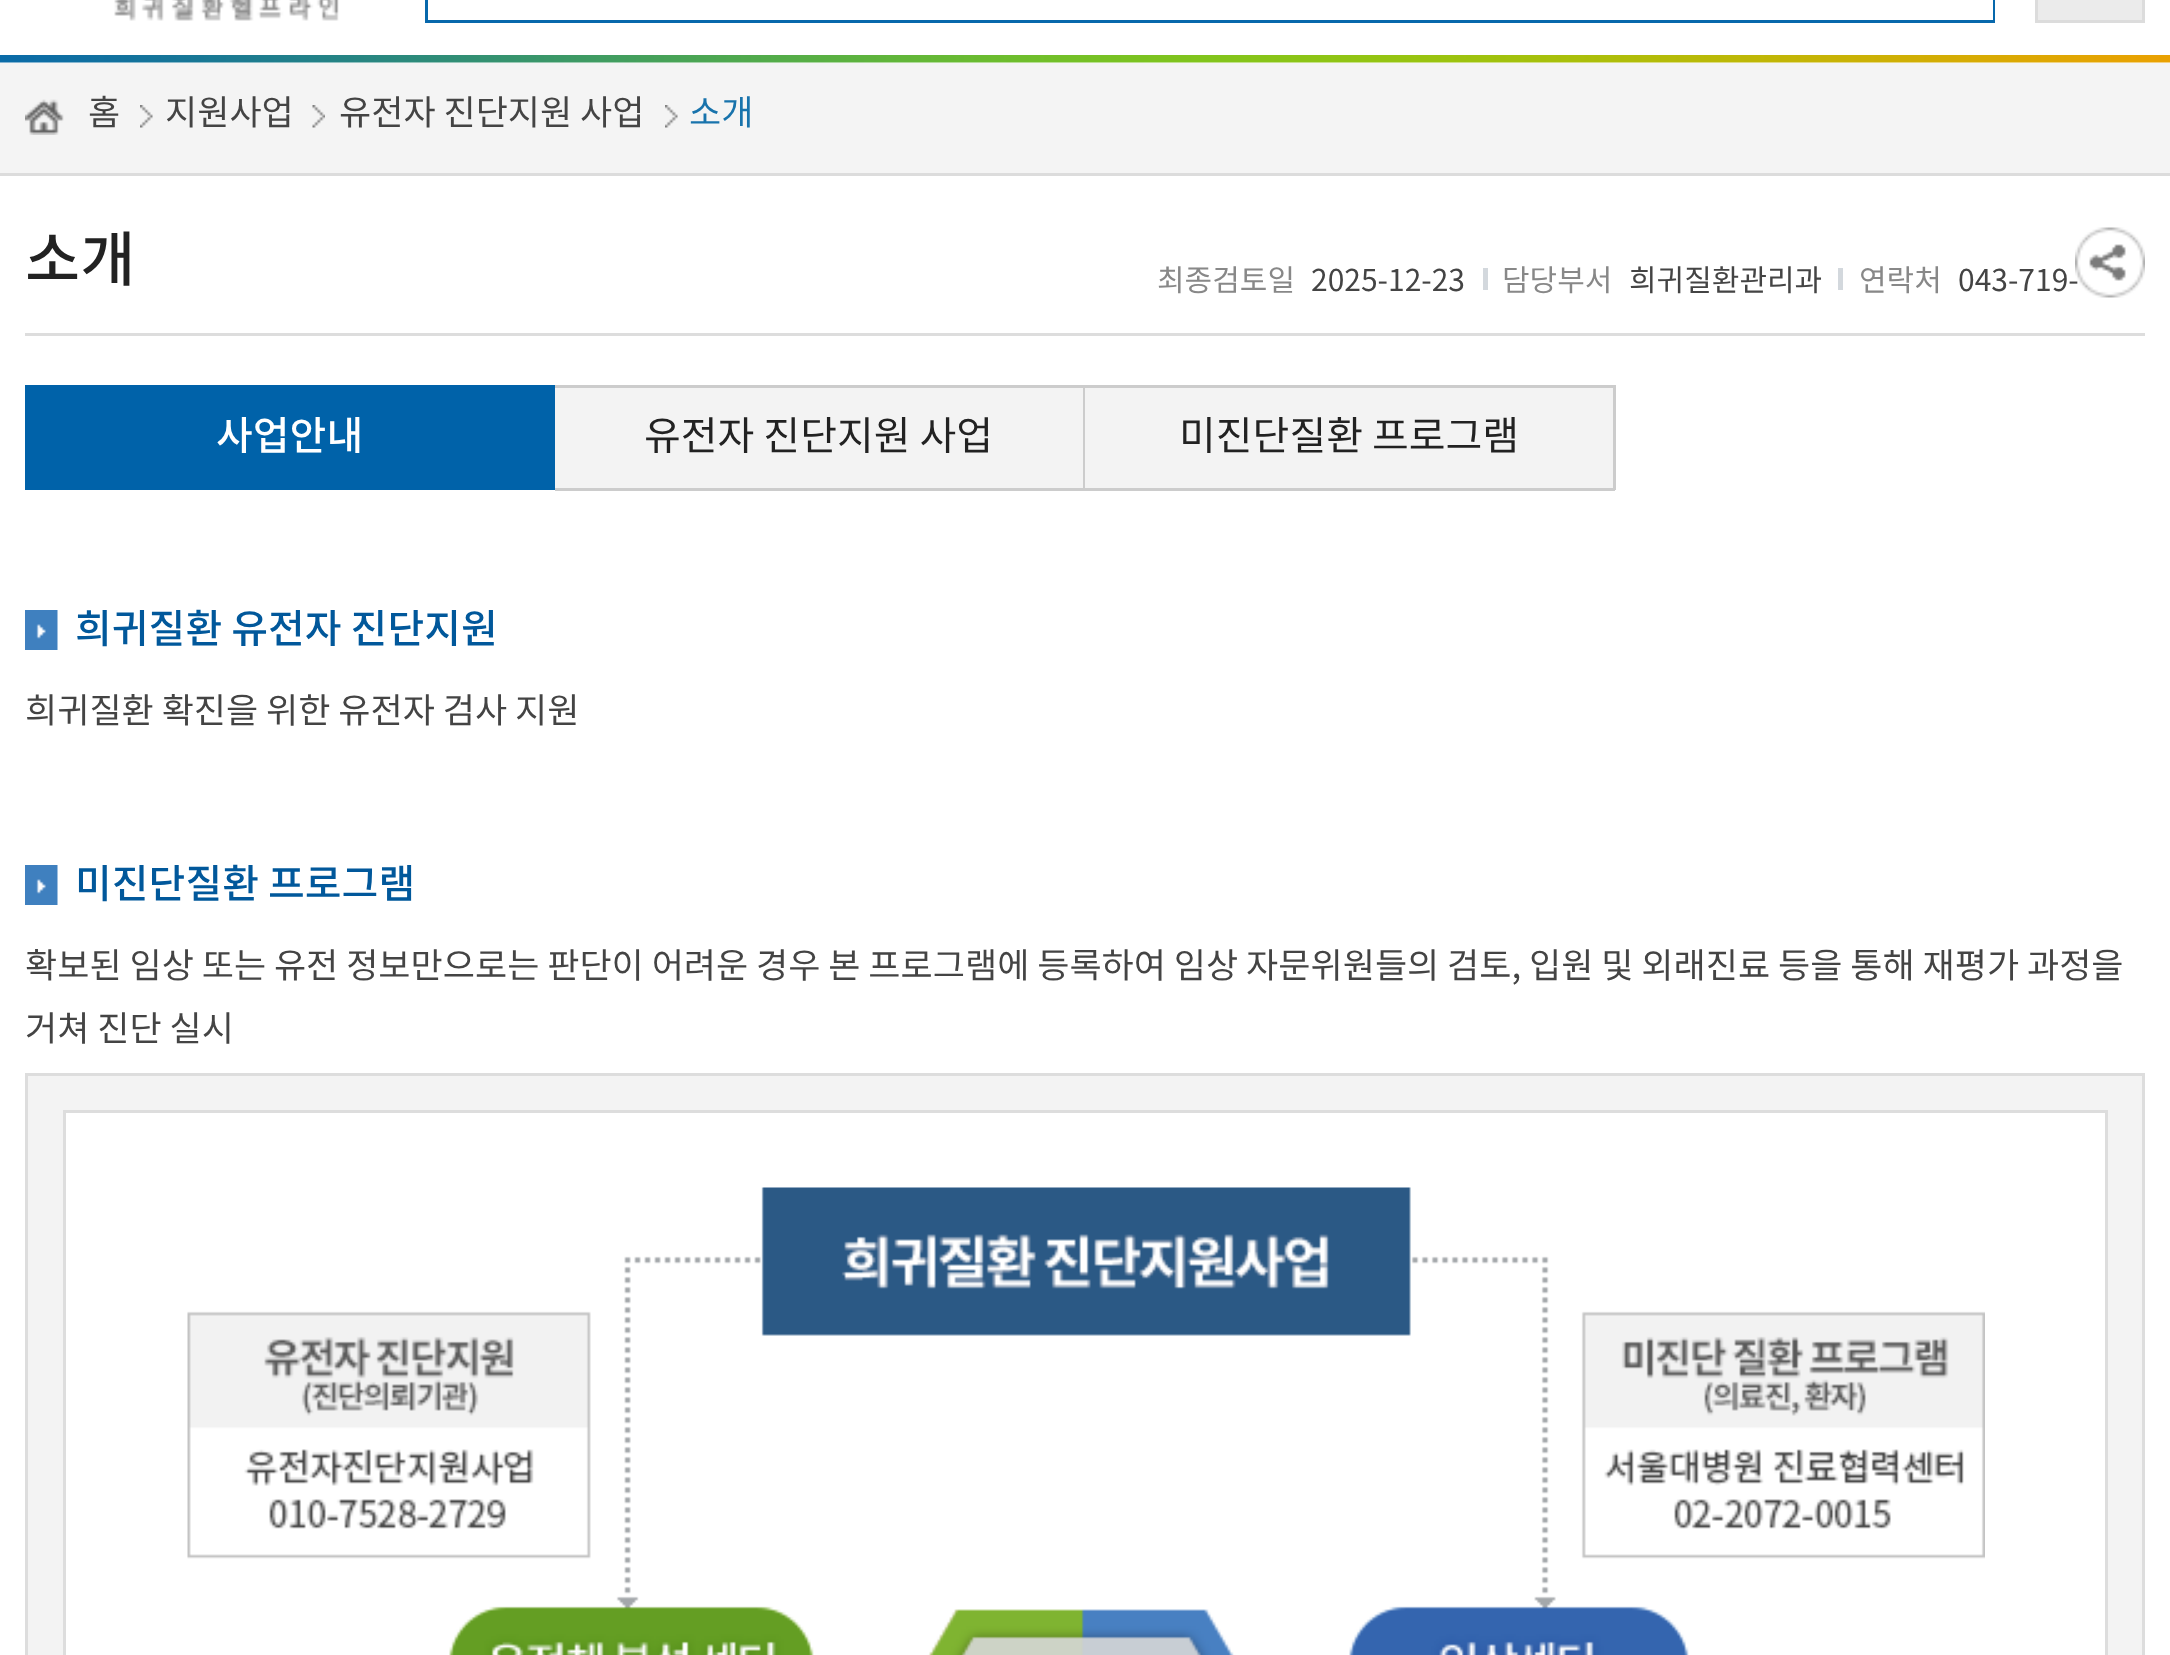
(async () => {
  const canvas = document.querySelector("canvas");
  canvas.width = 2170;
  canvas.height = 1655;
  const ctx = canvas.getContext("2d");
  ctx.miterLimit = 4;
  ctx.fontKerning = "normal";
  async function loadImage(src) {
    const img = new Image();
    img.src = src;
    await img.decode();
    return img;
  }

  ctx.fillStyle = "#ffffff";
  ctx.fillRect(0, 0, 2170, 1655);
  ctx.drawImage(await loadImage("img/1.png"), 0, 55, 2170, 8);
  ctx.drawImage(await loadImage("img/2.png"), 114, 0, 225, 21);
  ctx.strokeStyle = "#0768ac";
  ctx.lineWidth = 3;
  ctx.strokeRect(426.5, -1.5, 1567, 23);
  ctx.fillRect(1992, 0, 1, 20);
  ctx.fillStyle = "#ebebeb";
  ctx.beginPath();
  ctx.rect(2036.5, -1.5, 107, 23);
  ctx.fill();
  ctx.strokeStyle = "#dcdcdc";
  ctx.stroke();
  ctx.fillStyle = "#f4f4f4";
  ctx.fillRect(0, 63, 2170, 110);
  ctx.fillStyle = "#dcdcdc";
  ctx.fillRect(0, 173, 2170, 3);
  ctx.drawImage(await loadImage("img/3.png"), 25, 99, 128, 36);
  ctx.drawImage(await loadImage("img/4.png"), 312, 105, 13, 23);
  ctx.drawImage(await loadImage("img/5.png"), 665, 105, 13, 23);
  for (const [x, y, w, h, color] of [
    [25, 333, 2120, 3, "#dddddd"],
    [1483, 268, 5, 22, "#d3d8dd"],
    [1838, 268, 5, 22, "#d3d8dd"],
    [25, 385, 530, 105, "#0062a9"],
    [555, 388, 528, 100, "#f3f3f3"],
    [555, 385, 1060, 3, "#cccccc"],
    [1083, 385, 2, 105, "#cccccc"],
    [555, 488, 530, 3, "#cccccc"],
    [1085, 388, 528, 100, "#f3f3f3"],
    [1613, 385, 3, 105, "#cccccc"],
    [1085, 488, 530, 3, "#cccccc"],
  ]) {
    ctx.fillStyle = color;
    ctx.fillRect(x, y, w, h);
  }
  ctx.drawImage(await loadImage("img/7.png"), 25, 610, 33, 40);
  ctx.drawImage(await loadImage("img/7.png"), 25, 865, 33, 40);
  ctx.fillStyle = "#f3f3f3";
  ctx.beginPath();
  ctx.rect(26.5, 1074.5, 2117, 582);
  ctx.fill();
  ctx.strokeStyle = "#dddddd";
  ctx.stroke();
  ctx.fillStyle = "#ffffff";
  ctx.beginPath();
  ctx.rect(64.5, 1111.5, 2042, 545);
  ctx.fill();
  ctx.stroke();
  ctx.drawImage(await loadImage("img/8.png"), 187, 1187, 1798, 468);
  ctx.font = "35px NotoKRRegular";
  ctx.fillStyle = "#444444";
  for (const [text, x, y] of [
    ["홈", 88, 125],
    ["지원사업", 165, 125],
    ["유전자 진단지원 사업", 339, 125],
  ]) {
    ctx.fillText(text, x, y);
  }
  ctx.fillStyle = "#1873ac";
  ctx.fillText("소개", 689, 125);
  ctx.font = "500 60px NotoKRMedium";
  ctx.fillStyle = "#222222";
  ctx.fillText("소개", 25, 281);
  ctx.font = "30px NotoKRRegular";
  ctx.fillStyle = "#888888";
  ctx.fillText("최종검토일", 1157, 291);
  ctx.fillStyle = "#444444";
  ctx.fillText("2025-12-23", 1311, 291);
  ctx.fillStyle = "#888888";
  ctx.fillText("담당부서", 1502, 291);
  ctx.fillStyle = "#444444";
  ctx.fillText("희귀질환관리과", 1629, 291);
  ctx.fillStyle = "#888888";
  ctx.fillText("연락처", 1859, 291);
  ctx.fillStyle = "#444444";
  ctx.fillText("043-719-", 1958, 291);
  ctx.drawImage(await loadImage("img/6.png"), 2075, 227, 70, 71);
  ctx.font = "500 40px NotoKRMedium";
  ctx.fillStyle = "#ffffff";
  ctx.fillText("사업안내", 216, 450);
  ctx.font = "40px NotoKRRegular";
  ctx.fillStyle = "#222222";
  ctx.fillText("유전자 진단지원 사업", 644, 450);
  ctx.fillText("미진단질환 프로그램", 1179, 450);
  ctx.font = "500 40px NotoKRMedium";
  ctx.fillStyle = "#01589b";
  ctx.fillText("희귀질환 유전자 진단지원", 75, 643);
  ctx.font = "35px NotoKRRegular";
  ctx.fillStyle = "#444444";
  ctx.fillText("희귀질환 확진을 위한 유전자 검사 지원", 25, 723);
  ctx.font = "500 40px NotoKRMedium";
  ctx.fillStyle = "#01589b";
  ctx.fillText("미진단질환 프로그램", 75, 898);
  ctx.font = "35px NotoKRRegular";
  ctx.fillStyle = "#444444";
  ctx.fillText("확보된 임상 또는 유전 정보만으로는 판단이 어려운 경우 본 프로그램에 등록하여 임상 자문위원들의 검토, 입원 및 외래진료 등을 통해 재평가 과정을", 25, 978);
  ctx.fillText("거쳐 진단 실시", 25, 1041);
})();
